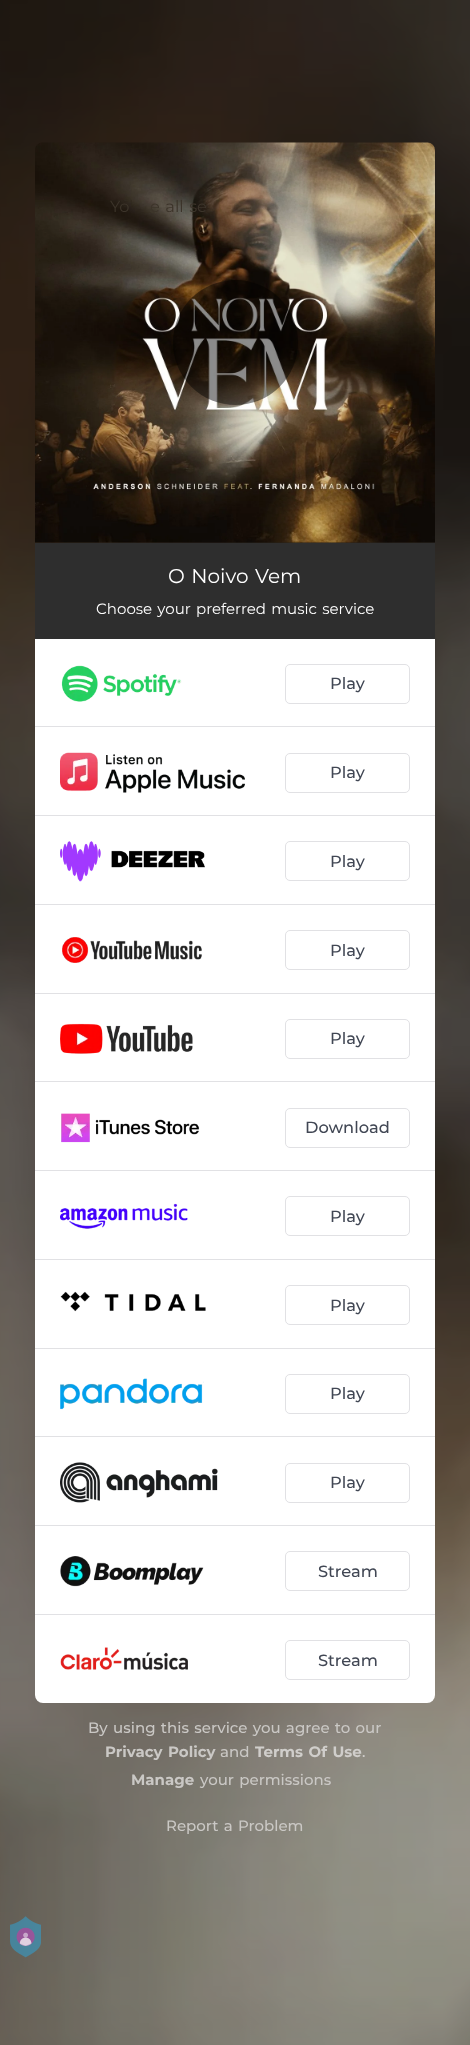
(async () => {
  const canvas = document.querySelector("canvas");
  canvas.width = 470;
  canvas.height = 2045;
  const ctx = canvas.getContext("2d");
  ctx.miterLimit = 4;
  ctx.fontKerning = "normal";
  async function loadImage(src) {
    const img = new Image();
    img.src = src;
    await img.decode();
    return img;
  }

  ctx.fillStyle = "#ffffff";
  ctx.fillRect(0, 0, 470, 2045);
  ctx.drawImage(await loadImage("img/1.png"), 0, 0, 470, 2045);
  ctx.drawImage(await loadImage("img/2.png"), 35, 142, 400, 401);
  ctx.fillStyle = "rgba(0, 0, 0, 0.45)";
  ctx.beginPath();
  ctx.arc(235.5, 342.5, 62.5, 0, Math.PI * 2);
  ctx.fill();
  ctx.fillStyle = "#2e2e2e";
  ctx.fillRect(35, 543, 400, 96);
  ctx.fillStyle = "#ffffff";
  ctx.beginPath();
  ctx.roundRect(35, 639, 400, 1064, [0, 0, 8, 8]);
  ctx.fill();
  ctx.fillStyle = "#e1e1e4";
  ctx.fillRect(35, 726, 400, 1);
  ctx.drawImage(await loadImage("img/3.png"), 61, 665, 121, 37);
  ctx.beginPath();
  ctx.roundRect(285.5, 664.5, 124, 39, 4.5);
  ctx.strokeStyle = "#e1e1e4";
  ctx.stroke();
  ctx.fillRect(35, 815, 400, 1);
  ctx.drawImage(await loadImage("img/4.png"), 60, 752, 185, 41);
  ctx.beginPath();
  ctx.roundRect(285.5, 753.5, 124, 39, 4.5);
  ctx.stroke();
  ctx.fillRect(35, 904, 400, 1);
  ctx.drawImage(await loadImage("img/5.png"), 60, 841, 145, 41);
  ctx.beginPath();
  ctx.roundRect(285.5, 841.5, 124, 39, 4.5);
  ctx.stroke();
  ctx.fillRect(35, 993, 400, 1);
  ctx.drawImage(await loadImage("img/6.png"), 62, 937, 140, 26);
  ctx.beginPath();
  ctx.roundRect(285.5, 930.5, 124, 39, 4.5);
  ctx.stroke();
  ctx.fillRect(35, 1081, 400, 1);
  ctx.drawImage(await loadImage("img/7.png"), 60, 1023, 133, 31);
  ctx.beginPath();
  ctx.roundRect(285.5, 1019.5, 124, 39, 4.5);
  ctx.stroke();
  ctx.fillRect(35, 1170, 400, 1);
  ctx.drawImage(await loadImage("img/8.png"), 61, 1113, 139, 30);
  ctx.beginPath();
  ctx.roundRect(285.5, 1108.5, 124, 39, 4.5);
  ctx.stroke();
  ctx.fillRect(35, 1259, 400, 1);
  ctx.drawImage(await loadImage("img/9.png"), 60, 1203, 128, 26);
  ctx.beginPath();
  ctx.roundRect(285.5, 1196.5, 124, 39, 4.5);
  ctx.stroke();
  ctx.fillRect(35, 1348, 400, 1);
  ctx.drawImage(await loadImage("img/10.png"), 60, 1291, 146, 21);
  ctx.beginPath();
  ctx.roundRect(285.5, 1285.5, 124, 39, 4.5);
  ctx.stroke();
  ctx.fillRect(35, 1436, 400, 1);
  ctx.drawImage(await loadImage("img/11.png"), 60, 1378, 144, 32);
  ctx.beginPath();
  ctx.roundRect(285.5, 1374.5, 124, 39, 4.5);
  ctx.stroke();
  ctx.fillRect(35, 1525, 400, 1);
  ctx.drawImage(await loadImage("img/12.png"), 60, 1462, 158, 41);
  ctx.beginPath();
  ctx.roundRect(285.5, 1463.5, 124, 39, 4.5);
  ctx.stroke();
  ctx.fillRect(35, 1614, 400, 1);
  ctx.drawImage(await loadImage("img/13.png"), 60, 1556, 144, 31);
  ctx.beginPath();
  ctx.roundRect(285.5, 1551.5, 124, 39, 4.5);
  ctx.stroke();
  ctx.drawImage(await loadImage("img/14.png"), 60, 1647, 128, 23);
  ctx.beginPath();
  ctx.roundRect(285.5, 1640.5, 124, 39, 4.5);
  ctx.stroke();
  ctx.drawImage(await loadImage("img/15.png"), 10, 1916, 31, 42);
  ctx.wordSpacing = "1.25px";
  ctx.font = "16.25px Montserrat";
  ctx.fillStyle = "#3c342a";
  ctx.fillText("Yo", 110, 212);
  ctx.fillText("e all se", 150, 212);
  ctx.font = "20px Montserrat";
  ctx.fillStyle = "#ffffff";
  ctx.fillText("O Noivo Vem", 168, 583);
  ctx.font = "15px Montserrat";
  ctx.fillText("Choose your preferred music service", 96, 614);
  ctx.wordSpacing = "0px";
  ctx.font = "500 16.25px Montserrat";
  ctx.fillStyle = "#414754";
  for (const [text, x, y] of [
    ["Play", 330, 689],
    ["Play", 330, 778],
    ["Play", 330, 867],
    ["Play", 330, 956],
    ["Play", 330, 1044],
    ["Download", 305, 1133],
    ["Play", 330, 1222],
    ["Play", 330, 1311],
    ["Play", 330, 1399],
    ["Play", 330, 1488],
    ["Stream", 318, 1577],
    ["Stream", 318, 1666],
  ]) {
    ctx.fillText(text, x, y);
  }
  ctx.wordSpacing = "1.25px";
  ctx.font = "500 15px Montserrat";
  ctx.fillStyle = "#cac8c5";
  ctx.fillText("By using this service you agree to our", 88, 1733);
  ctx.font = "bold 15px Montserrat";
  ctx.fillText("Privacy Policy", 105, 1757);
  ctx.wordSpacing = "0px";
  ctx.font = "500 15px Montserrat";
  ctx.fillText("and", 220, 1757);
  ctx.wordSpacing = "1.25px";
  ctx.font = "bold 15px Montserrat";
  ctx.fillStyle = "#d0cecb";
  ctx.fillText("Terms Of Use", 255, 1757);
  ctx.wordSpacing = "0px";
  ctx.font = "500 15px Montserrat";
  ctx.fillText(".", 362, 1757);
  ctx.font = "bold 15px Montserrat";
  ctx.fillStyle = "#cac8c5";
  ctx.fillText("Manage", 131, 1785);
  ctx.wordSpacing = "1.25px";
  ctx.font = "500 15px Montserrat";
  ctx.fillText("your permissions", 200, 1785);
  ctx.fillText("Report a Problem", 166, 1831);
})();
